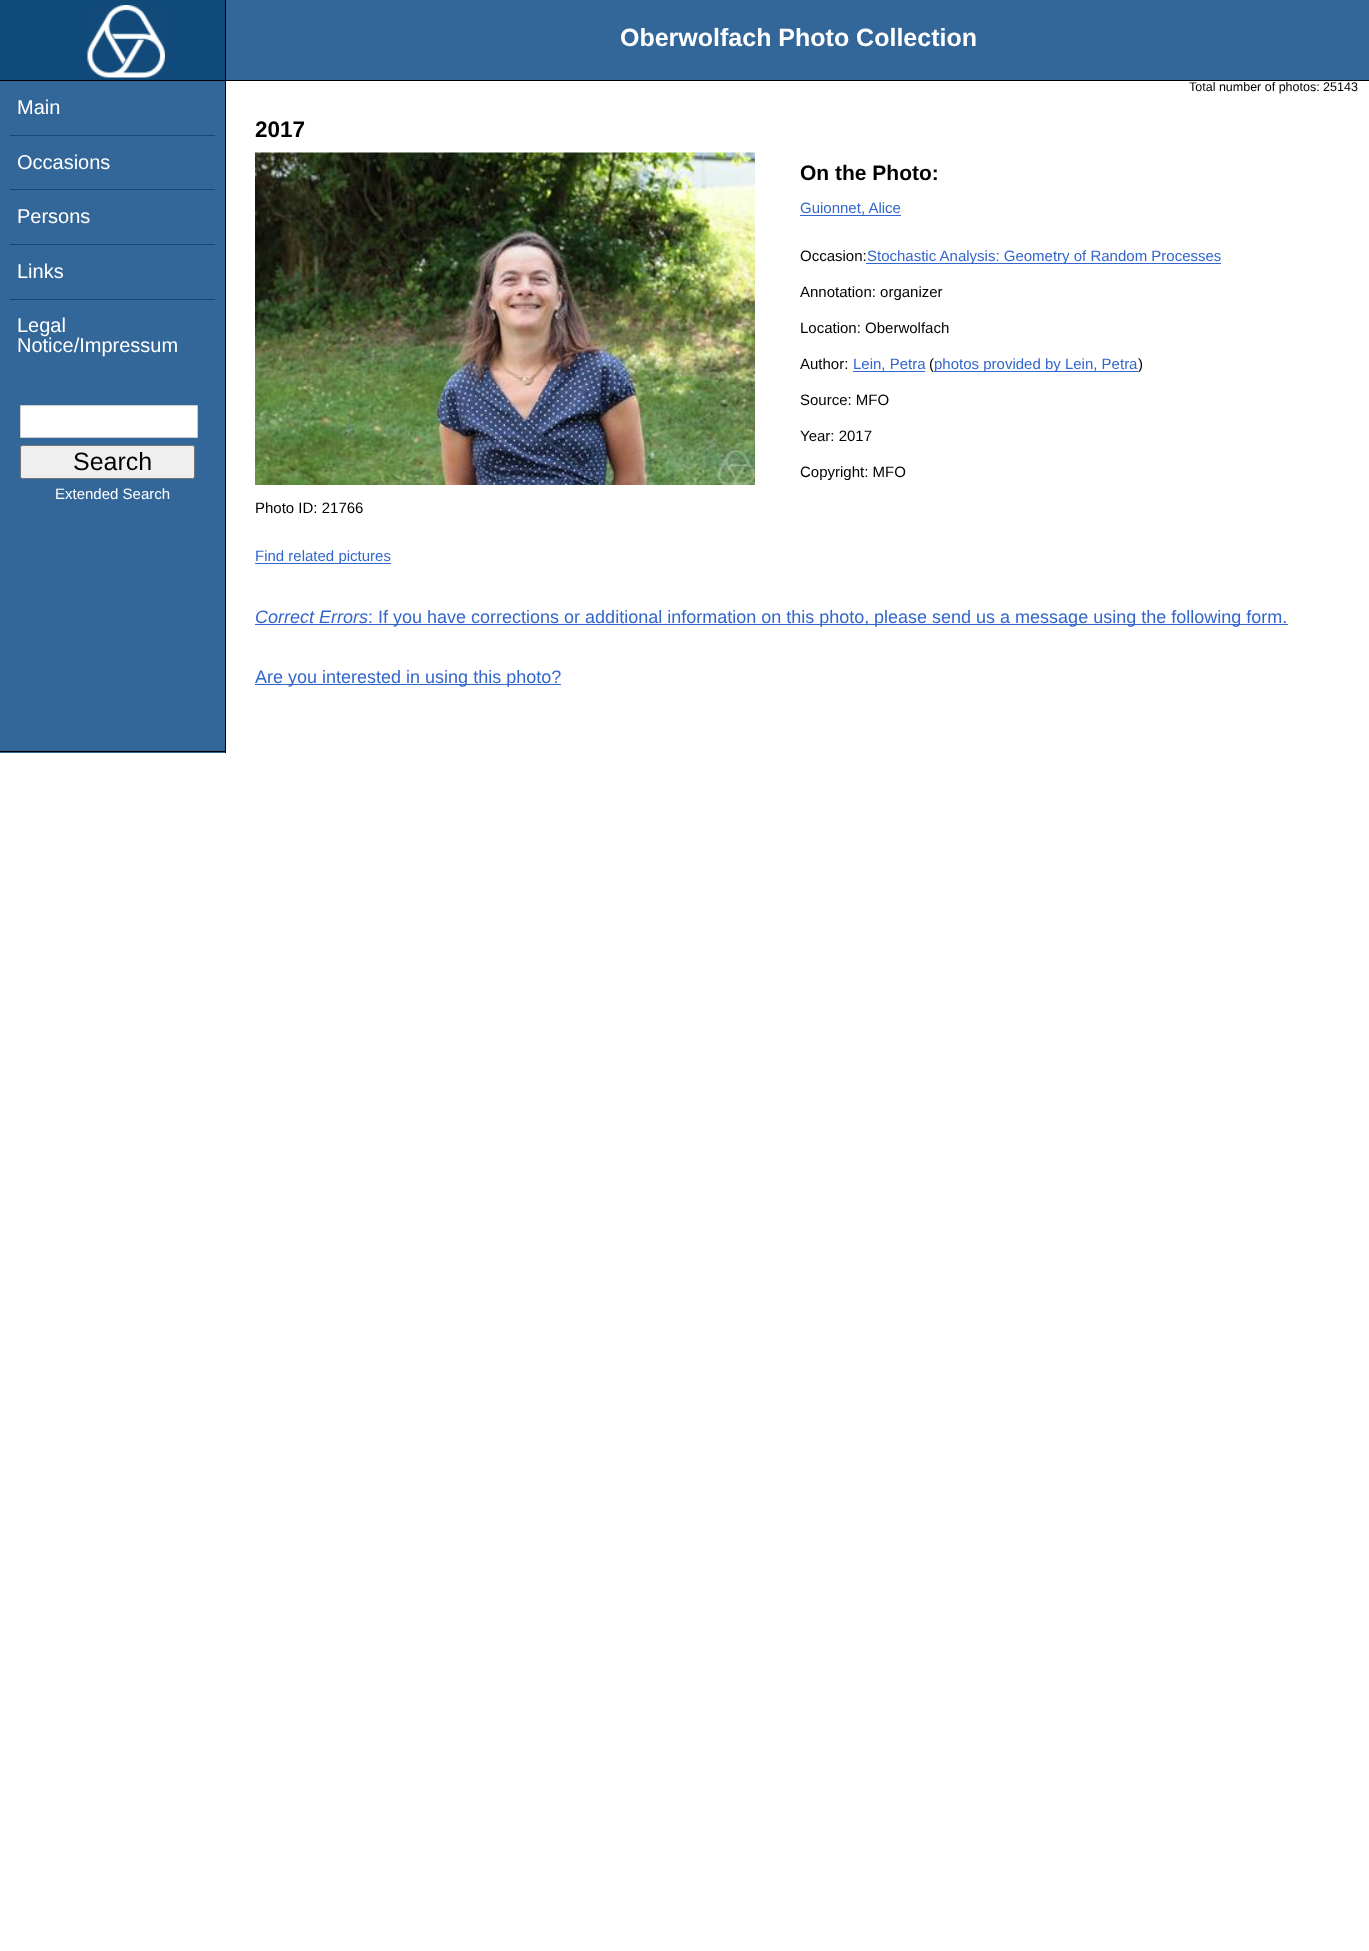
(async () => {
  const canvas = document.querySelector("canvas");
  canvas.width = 1369;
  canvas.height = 1951;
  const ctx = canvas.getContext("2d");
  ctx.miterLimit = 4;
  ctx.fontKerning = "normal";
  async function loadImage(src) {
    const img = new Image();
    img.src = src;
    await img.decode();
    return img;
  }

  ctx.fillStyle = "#ffffff";
  ctx.fillRect(0, 0, 1369, 1951);
  for (const [x, y, w, h, color] of [
    [226, 0, 1143, 80, "#336699"],
    [0, 80, 1369, 1, "#000000"],
    [0, 0, 225, 80, "#104a7b"],
    [225, 0, 1, 80, "#000000"],
  ]) {
    ctx.fillStyle = color;
    ctx.fillRect(x, y, w, h);
  }
  ctx.drawImage(await loadImage("img/1.png"), 87, 5, 78, 73);
  for (const [x, y, w, h, color] of [
    [0, 81, 225, 672, "#336699"],
    [225, 81, 1, 672, "#000000"],
    [0, 751, 226, 1, "#000000"],
    [10, 135, 205, 1, "#104a7b"],
    [10, 189, 205, 1, "#104a7b"],
    [10, 244, 205, 1, "#104a7b"],
    [10, 299, 205, 1, "#104a7b"],
  ]) {
    ctx.fillStyle = color;
    ctx.fillRect(x, y, w, h);
  }
  ctx.fillStyle = "#ffffff";
  ctx.beginPath();
  ctx.rect(20.5, 405.5, 177, 32);
  ctx.fill();
  ctx.strokeStyle = "#cccccc";
  ctx.stroke();
  ctx.fillStyle = "#efefef";
  ctx.beginPath();
  ctx.roundRect(20.5, 445.5, 174, 33, 2);
  ctx.fill();
  ctx.strokeStyle = "#767676";
  ctx.stroke();
  ctx.drawImage(await loadImage("img/2.png"), 255, 152, 500, 333);
  for (const [x, y, w, h, color] of [
    [800, 215, 101, 1, "#3366cc"],
    [866, 263, 355, 1, "#3366cc"],
    [853, 371, 72, 1, "#3366cc"],
    [255, 563, 136, 1, "#3366cc"],
    [255, 624, 1033, 1, "#3366cc"],
    [255, 684, 306, 1, "#3366cc"],
  ]) {
    ctx.fillStyle = color;
    ctx.fillRect(x, y, w, h);
  }
  ctx.font = "bold 25px Liberation Sans";
  ctx.fillStyle = "#ffffff";
  ctx.fillText("Oberwolfach Photo Collection", 620, 46);
  ctx.font = "12.5px Liberation Sans";
  ctx.fillStyle = "#000000";
  ctx.fillText("Total number of photos: 25143", 1189, 91);
  ctx.font = "20px Liberation Sans";
  ctx.fillStyle = "#ffffff";
  for (const [text, x, y] of [
    ["Main", 17, 114],
    ["Occasions", 17, 169],
    ["Persons", 17, 223],
    ["Links", 17, 278],
    ["Legal", 17, 332],
    ["Notice/Impressum", 17, 352],
  ]) {
    ctx.fillText(text, x, y);
  }
  ctx.font = "25px Liberation Sans";
  ctx.fillStyle = "#000000";
  ctx.fillText("Search", 73, 470);
  ctx.font = "15px Liberation Sans";
  ctx.fillStyle = "#ffffff";
  ctx.fillText("Extended Search", 55, 499);
  ctx.font = "bold 22.5px Liberation Sans";
  ctx.fillStyle = "#000000";
  ctx.fillText("2017", 255, 137);
  ctx.font = "bold 21px Liberation Sans";
  ctx.fillText("On the Photo:", 800, 180);
  ctx.font = "15px Liberation Sans";
  ctx.fillStyle = "#3366cc";
  ctx.fillText("Guionnet, Alice", 800, 213);
  ctx.fillStyle = "#000000";
  ctx.fillText("Occasion:", 800, 261);
  ctx.fillStyle = "#3366cc";
  ctx.fillText("Stochastic Analysis: Geometry of Random Processes", 867, 261);
  ctx.fillStyle = "#000000";
  for (const [text, x, y] of [
    ["Annotation: organizer", 800, 297],
    ["Location: Oberwolfach", 800, 333],
    ["Author:", 800, 369],
  ]) {
    ctx.fillText(text, x, y);
  }
  ctx.fillStyle = "#3366cc";
  ctx.fillText("Lein, Petra", 853, 369);
  ctx.fillStyle = "#000000";
  ctx.fillText("(", 929, 369);
  ctx.fillStyle = "#3366cc";
  ctx.fillRect(934, 371, 204, 1);
  ctx.fillText("photos provided by Lein, Petra", 934, 369);
  ctx.fillStyle = "#000000";
  for (const [text, x, y] of [
    [")", 1138, 369],
    ["Source: MFO", 800, 405],
    ["Year: 2017", 800, 441],
    ["Copyright: MFO", 800, 477],
    ["Photo ID: 21766", 255, 513],
  ]) {
    ctx.fillText(text, x, y);
  }
  ctx.fillStyle = "#3366cc";
  ctx.fillText("Find related pictures", 255, 561);
  ctx.font = "italic 18px Liberation Sans";
  ctx.fillText("Correct Errors", 255, 623);
  ctx.font = "18px Liberation Sans";
  for (const [text, x, y] of [
    [": If you have corrections or additional information on this photo,", 368, 623],
    ["please send us a message using the following form.", 874, 623],
    ["Are you interested in using this photo?", 255, 683],
  ]) {
    ctx.fillText(text, x, y);
  }
})();
